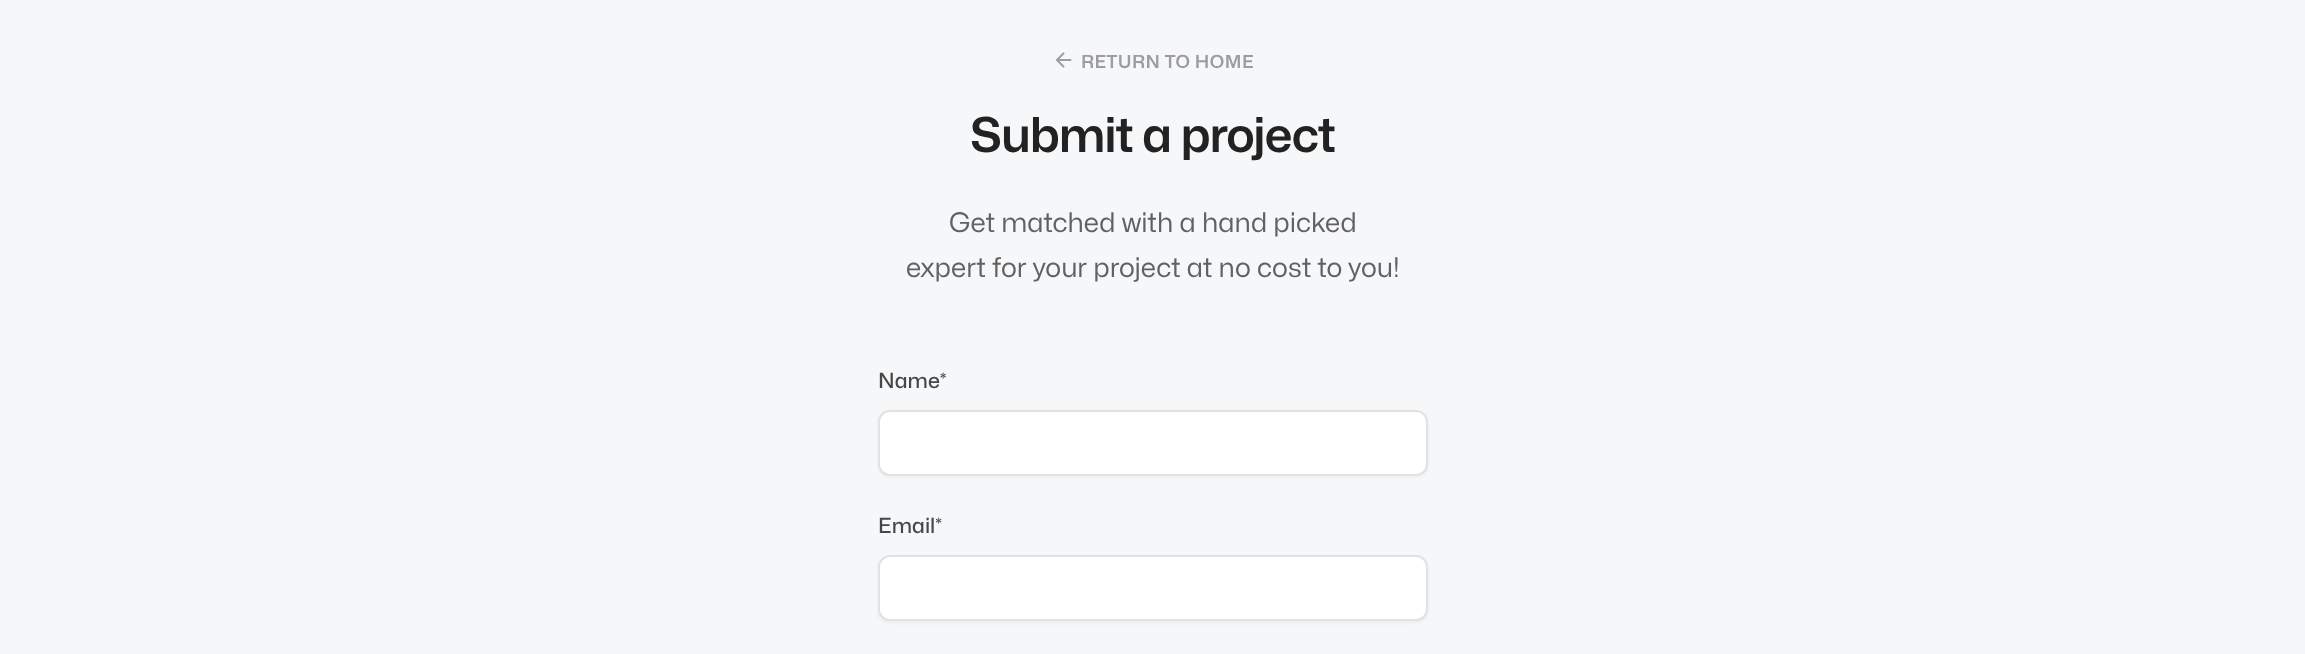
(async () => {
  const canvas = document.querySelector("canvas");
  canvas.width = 2305;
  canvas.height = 654;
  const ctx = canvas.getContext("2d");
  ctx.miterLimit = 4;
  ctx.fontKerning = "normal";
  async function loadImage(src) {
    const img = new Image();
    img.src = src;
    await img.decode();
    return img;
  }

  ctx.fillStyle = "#f6f7f9";
  ctx.fillRect(0, 0, 2305, 654);
  ctx.drawImage(await loadImage("img/1.png"), 1056, 52, 16, 16);
  ctx.fillStyle = "rgba(16, 24, 40, 0.05)";
  ctx.filter = "blur(1.5px)";
  ctx.beginPath();
  ctx.roundRect(878, 411, 550, 66, 12);
  ctx.fill();
  ctx.filter = "none";
  ctx.fillStyle = "#ffffff";
  ctx.beginPath();
  ctx.roundRect(879, 411, 548, 64, 11);
  ctx.fill();
  ctx.strokeStyle = "#e2e2e2";
  ctx.lineWidth = 2;
  ctx.stroke();
  ctx.fillStyle = "rgba(16, 24, 40, 0.05)";
  ctx.filter = "blur(1.5px)";
  ctx.beginPath();
  ctx.roundRect(878, 557, 550, 66, 12);
  ctx.fill();
  ctx.filter = "none";
  ctx.fillStyle = "#ffffff";
  ctx.beginPath();
  ctx.roundRect(879, 556, 548, 64, 11);
  ctx.fill();
  ctx.stroke();
  ctx.letterSpacing = "0.5px";
  ctx.font = "600 18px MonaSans";
  ctx.fillStyle = "#9d9d9e";
  ctx.fillText("RETURN TO HOME", 1081, 68);
  ctx.letterSpacing = "-1px";
  ctx.font = "600 48px MonaSans";
  ctx.fillStyle = "#222222";
  ctx.fillText("Submit a project", 970, 152);
  ctx.letterSpacing = "0px";
  ctx.font = "italic 27px MonaSans";
  ctx.fillStyle = "#616161";
  ctx.fillText("Get matched with a hand picked", 949, 232);
  ctx.fillText("expert for your project at no cost to you!", 906, 277);
  ctx.font = "500 21px MonaSans";
  ctx.fillStyle = "#474747";
  ctx.fillText("Name*", 878, 388);
  ctx.fillText("Email*", 878, 533);
})();
